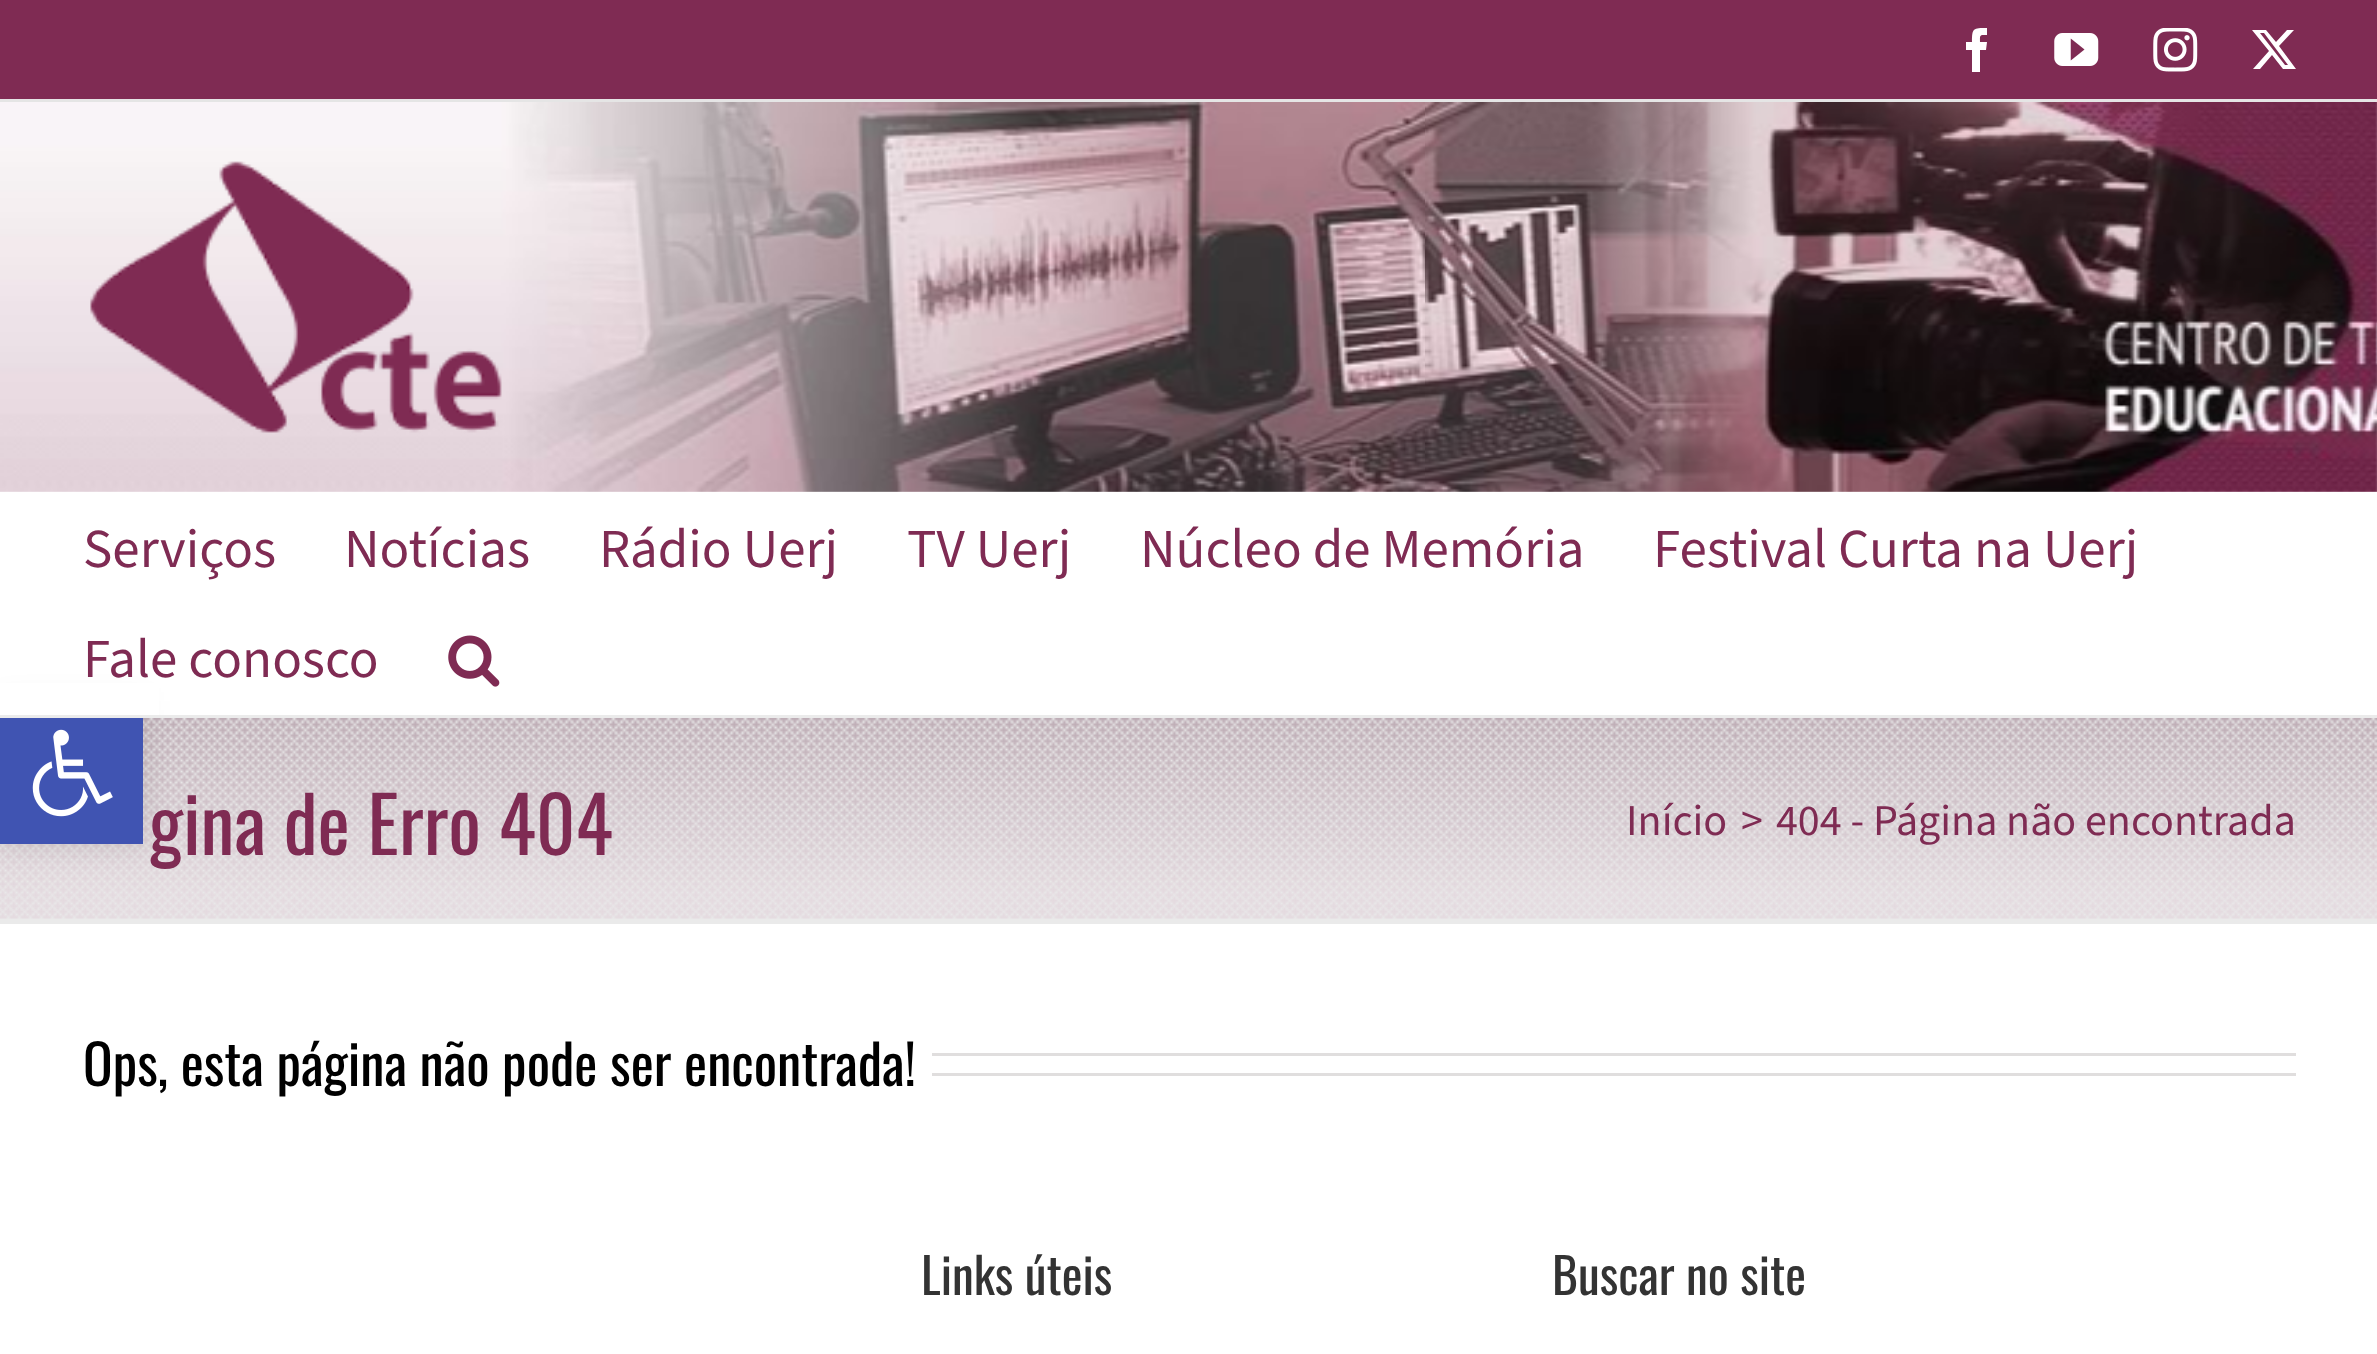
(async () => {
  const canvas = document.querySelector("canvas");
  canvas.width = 2377;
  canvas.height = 1354;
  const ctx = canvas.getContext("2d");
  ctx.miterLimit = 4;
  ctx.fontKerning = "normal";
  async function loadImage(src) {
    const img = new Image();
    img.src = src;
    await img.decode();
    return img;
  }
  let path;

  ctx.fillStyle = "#ffffff";
  ctx.fillRect(0, 0, 2377, 1354);
  ctx.fillStyle = "#7f2b53";
  ctx.fillRect(0, 0, 2377, 99);
  ctx.fillStyle = "#e5e5e5";
  ctx.fillRect(0, 99, 2377, 3);
  ctx.fillStyle = "#ffffff";
  path = new Path2D("M1980 72H1972V50H1966V42H1972C1972 28 1973 28 1987 28V35C1979 35 1980 35 1980 42H1987L1986 50H1980Z");
  ctx.fill(path);
  ctx.drawImage(await loadImage("img/1.png"), 2054, 33, 45, 33);
  ctx.drawImage(await loadImage("img/2.png"), 2153, 28, 45, 44);
  path = new Path2D("M2287 30H2294L2279 46L2296 69H2283L2272 55L2260 69H2253L2269 51L2252 30H2266L2276 42ZM2285 65H2288L2264 33H2260Z");
  ctx.fill(path);
  ctx.drawImage(await loadImage("img/3.png"), 0, 102, 2377, 390);
  ctx.drawImage(await loadImage("img/4.png"), 90, 161, 412, 272);
  ctx.fillStyle = "#eaeaea";
  ctx.fillRect(0, 718, 2377, 206);
  ctx.drawImage(await loadImage("img/6.png"), 0, 718, 2377, 201);
  ctx.fillStyle = "rgba(0, 0, 0, 0.1)";
  ctx.filter = "blur(14px)";
  ctx.beginPath();
  ctx.rect(0, 701, 143, 143);
  ctx.fill();
  ctx.filter = "none";
  ctx.fillStyle = "#ffffff";
  ctx.fillRect(0, 683, 159, 32);
  ctx.fillStyle = "#ebebeb";
  ctx.fillRect(0, 715, 2377, 3);
  ctx.drawImage(await loadImage("img/5.png"), 448, 635, 52, 52);
  for (const [x, y, w, h, color] of [
    [932, 1053, 1364, 3, "#e0dede"],
    [932, 1073, 1364, 3, "#e0dede"],
    [0, 718, 143, 126, "#4054b2"],
  ]) {
    ctx.fillStyle = color;
    ctx.fillRect(x, y, w, h);
  }
  ctx.drawImage(await loadImage("img/7.png"), 32, 729, 81, 88);
  ctx.font = "55px 'Source Sans 3'";
  ctx.fillStyle = "#7f2b53";
  for (const [text, x, y] of [
    ["Serviços", 83, 567],
    ["Notícias", 344, 567],
    ["Rádio Uerj", 599, 567],
    ["TV Uerj", 907, 567],
    ["Núcleo de Memória", 1140, 567],
    ["Festival Curta na Uerj", 1653, 567],
    ["Fale conosco", 83, 677],
  ]) {
    ctx.fillText(text, x, y);
  }
  ctx.font = "77px Oswald";
  ctx.fillText("gina de Erro 404", 149, 855);
  ctx.font = "44px 'Source Sans 3'";
  for (const [text, x, y] of [
    ["Início", 1626, 835],
    [">", 1741, 835],
    ["404 - Página não encontrada", 1776, 835],
  ]) {
    ctx.fillText(text, x, y);
  }
  ctx.font = "55px Oswald";
  ctx.fillStyle = "#000000";
  ctx.fillText("Ops, esta página não pode ser encontrada!", 83, 1086);
  ctx.font = "49.5px Oswald";
  ctx.fillStyle = "#333333";
  ctx.fillText("Links úteis", 921, 1295);
  ctx.fillText("Buscar no site", 1552, 1295);
})();
